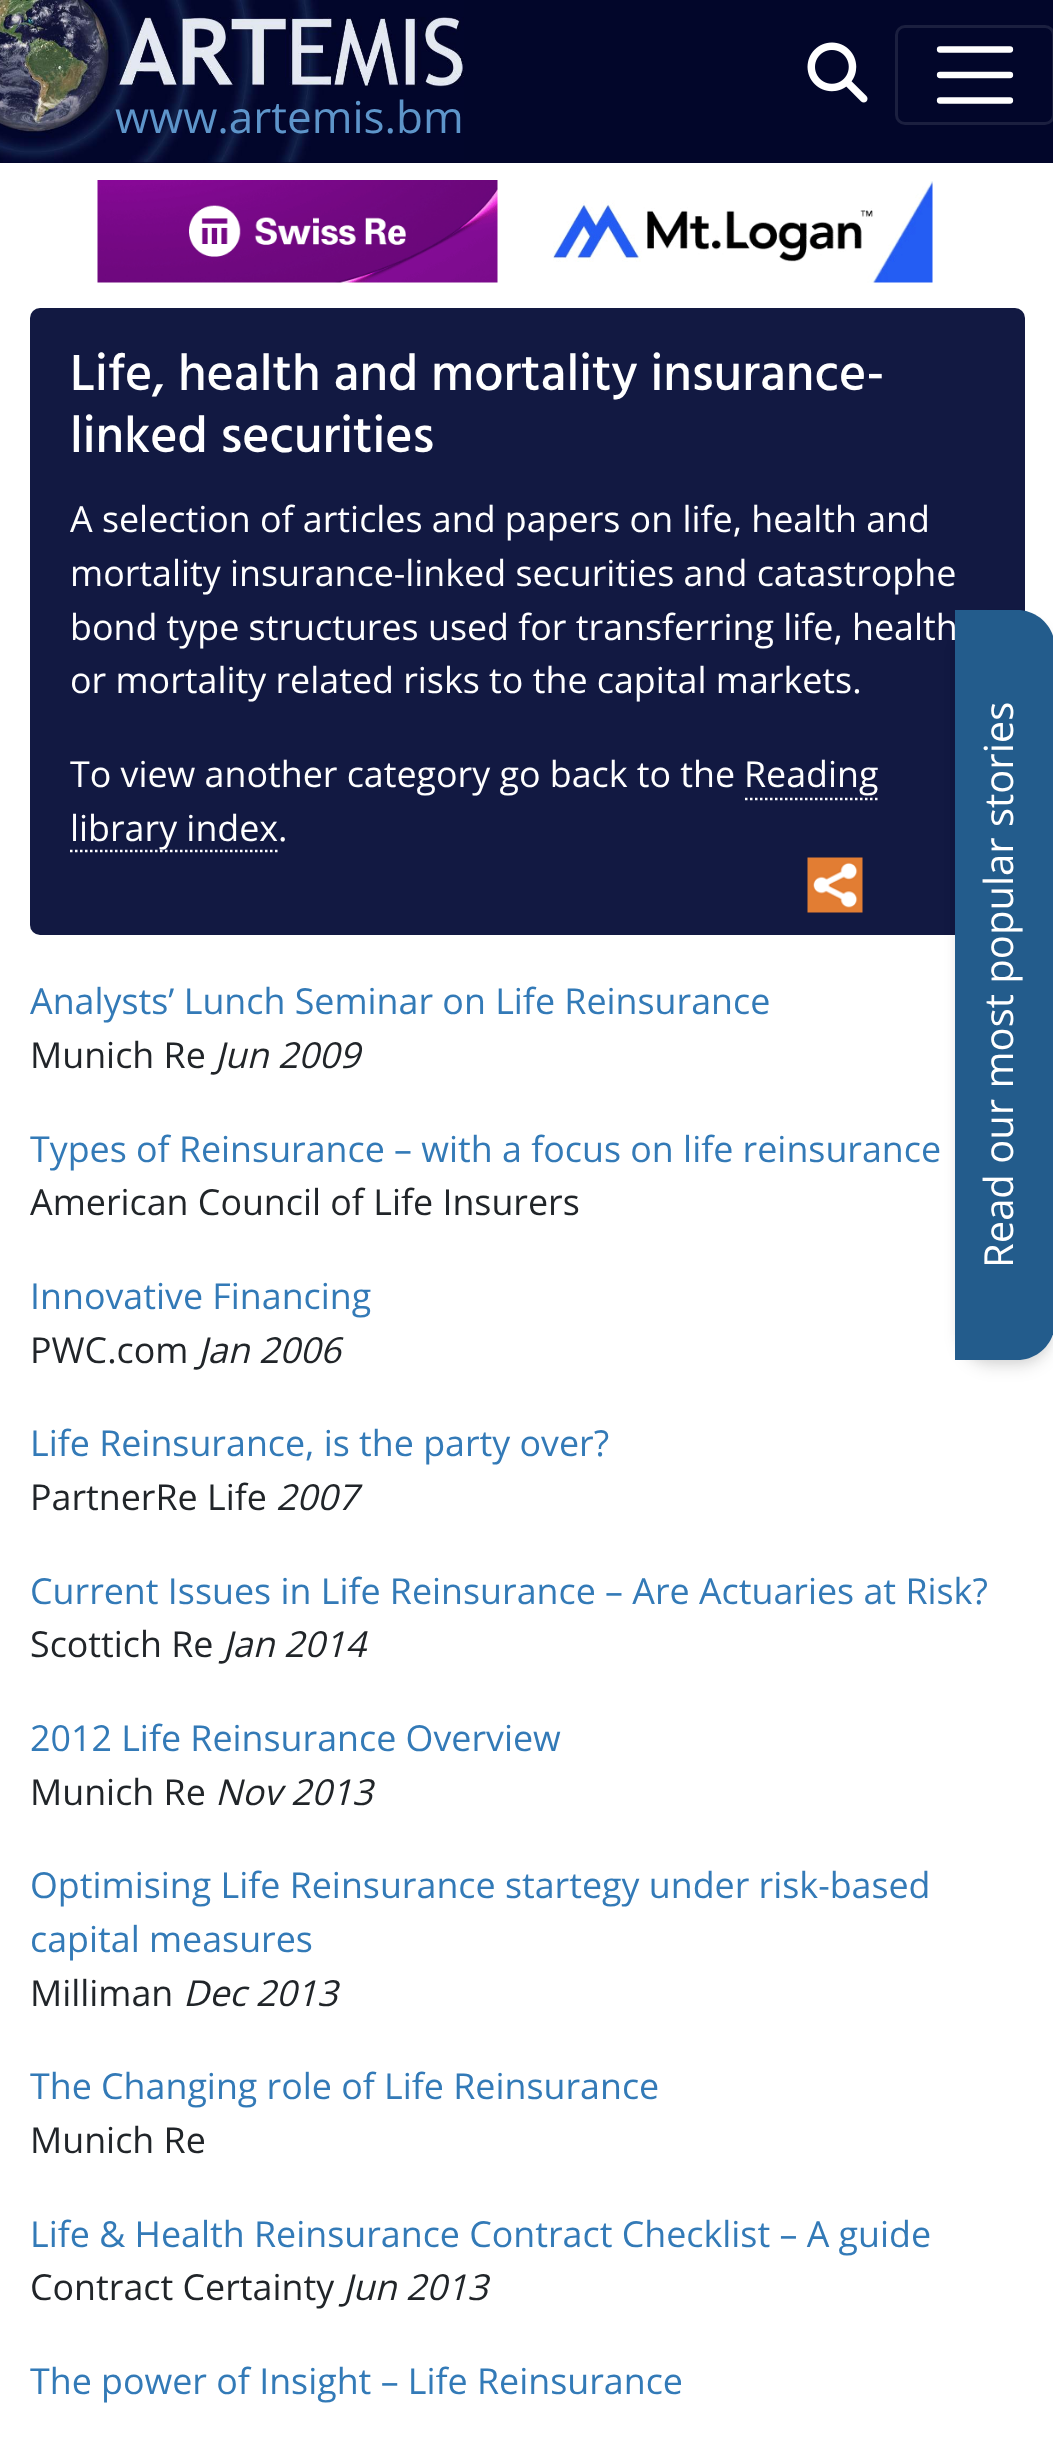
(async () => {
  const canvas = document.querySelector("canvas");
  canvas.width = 1053;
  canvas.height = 2439;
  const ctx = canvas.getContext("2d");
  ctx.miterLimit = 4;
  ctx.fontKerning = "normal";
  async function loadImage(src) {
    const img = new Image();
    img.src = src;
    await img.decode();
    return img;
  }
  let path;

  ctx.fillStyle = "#ffffff";
  ctx.fillRect(0, 0, 1053, 2439);
  ctx.fillStyle = "#02062a";
  ctx.fillRect(0, 0, 1053, 163);
  ctx.drawImage(await loadImage("img/1.png"), 807, 42, 61, 61);
  ctx.drawImage(await loadImage("img/2.png"), 0, 0, 464, 163);
  ctx.beginPath();
  ctx.roundRect(896.5, 26.5, 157, 97, 8.5);
  ctx.strokeStyle = "#1b1f3f";
  ctx.lineWidth = 3;
  ctx.stroke();
  path = new Path2D("M940 49.5H1010M940 75H1010M940 100.5H1010");
  ctx.strokeStyle = "#ffffff";
  ctx.lineWidth = 6.3;
  ctx.lineCap = "round";
  ctx.stroke(path);
  ctx.drawImage(await loadImage("img/3.png"), 97, 180, 401, 103);
  ctx.drawImage(await loadImage("img/4.png"), 553, 181, 380, 102);
  ctx.fillStyle = "#121942";
  ctx.beginPath();
  ctx.roundRect(30, 308, 995, 627, 10);
  ctx.fill();
  path = new Path2D("M745 799H877.5");
  ctx.lineWidth = 2.5;
  ctx.lineCap = "butt";
  ctx.setLineDash([2.5, 2.5]);
  ctx.stroke(path);
  path = new Path2D("M70 851H277.5");
  ctx.stroke(path);
  ctx.drawImage(await loadImage("img/5.png"), 807, 857, 56, 56);
  ctx.fillStyle = "rgba(0, 0, 0, 0.06)";
  ctx.filter = "blur(5px)";
  ctx.beginPath();
  ctx.roundRect(958, 618, 95, 745, 35);
  ctx.fill();
  ctx.filter = "none";
  ctx.fillStyle = "rgba(0, 0, 0, 0.1)";
  ctx.filter = "blur(7.5px)";
  ctx.beginPath();
  ctx.roundRect(958, 623, 95, 745, 35);
  ctx.fill();
  ctx.filter = "none";
  ctx.fillStyle = "#235c8c";
  path = new Path2D("M955 610H1017C1038 610 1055 627 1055 648V1322C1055 1343 1038 1360 1017 1360H955Z");
  ctx.fill(path);
  ctx.font = "44px Open Sans";
  ctx.fillStyle = "#5e95ca";
  ctx.fillText("www.artemis.bm", 115, 133);
  ctx.font = "500 52px Hind";
  ctx.fillStyle = "#ffffff";
  ctx.fillText("Life, health and mortality insurance-", 70, 390);
  ctx.fillText("linked securities", 70, 452);
  ctx.font = "35.8px Open Sans";
  for (const [text, x, y] of [
    ["A selection of articles and papers on life, health and", 70, 532],
    ["mortality insurance-linked securities and catastrophe", 70, 586],
    ["bond type structures used for transferring life, health", 70, 640],
    ["or mortality related risks to the capital markets.", 70, 693],
    ["To view another category go back to the", 70, 787],
    ["Reading", 744, 787],
    ["library index.", 70, 841],
  ]) {
    ctx.fillText(text, x, y);
  }
  ctx.fillStyle = "#337ab7";
  ctx.fillText("Analysts’ Lunch Seminar on Life Reinsurance", 30, 1014);
  ctx.fillStyle = "#212529";
  ctx.fillText("Munich Re", 30, 1068);
  ctx.font = "italic 35.8px Open Sans";
  ctx.fillText("Jun 2009", 215, 1068);
  ctx.font = "35.8px Open Sans";
  ctx.fillStyle = "#337ab7";
  ctx.fillText("Types of Reinsurance – with a focus on life reinsurance", 30, 1162);
  ctx.fillStyle = "#212529";
  ctx.fillText("American Council of Life Insurers", 30, 1215);
  ctx.fillStyle = "#337ab7";
  ctx.fillText("Innovative Financing", 30, 1309);
  ctx.fillStyle = "#212529";
  ctx.fillText("PWC.com", 30, 1363);
  ctx.font = "italic 35.8px Open Sans";
  ctx.fillText("Jan 2006", 198, 1363);
  ctx.font = "35.8px Open Sans";
  ctx.fillStyle = "#337ab7";
  ctx.fillText("Life Reinsurance, is the party over?", 30, 1456);
  ctx.fillStyle = "#212529";
  ctx.fillText("PartnerRe Life", 30, 1510);
  ctx.font = "italic 35.8px Open Sans";
  ctx.fillText("2007", 276, 1510);
  ctx.font = "35.8px Open Sans";
  ctx.fillStyle = "#337ab7";
  ctx.fillText("Current Issues in Life Reinsurance – Are Actuaries at Risk?", 30, 1604);
  ctx.fillStyle = "#212529";
  ctx.fillText("Scottich Re", 30, 1657);
  ctx.font = "italic 35.8px Open Sans";
  ctx.fillText("Jan 2014", 223, 1657);
  ctx.font = "35.8px Open Sans";
  ctx.fillStyle = "#337ab7";
  ctx.fillText("2012 Life Reinsurance Overview", 30, 1751);
  ctx.fillStyle = "#212529";
  ctx.fillText("Munich Re", 30, 1805);
  ctx.font = "italic 35.8px Open Sans";
  ctx.fillText("Nov 2013", 215, 1805);
  ctx.font = "35.8px Open Sans";
  ctx.fillStyle = "#337ab7";
  ctx.fillText("Optimising Life Reinsurance startegy under risk-based", 30, 1898);
  ctx.fillText("capital measures", 30, 1952);
  ctx.fillStyle = "#212529";
  ctx.fillText("Milliman", 30, 2006);
  ctx.font = "italic 35.8px Open Sans";
  ctx.fillText("Dec 2013", 183, 2006);
  ctx.font = "35.8px Open Sans";
  ctx.fillStyle = "#337ab7";
  ctx.fillText("The Changing role of Life Reinsurance", 30, 2099);
  ctx.fillStyle = "#212529";
  ctx.fillText("Munich Re", 30, 2153);
  ctx.fillStyle = "#337ab7";
  ctx.fillText("Life & Health Reinsurance Contract Checklist – A guide", 30, 2247);
  ctx.fillStyle = "#212529";
  ctx.fillText("Contract Certainty", 30, 2300);
  ctx.font = "italic 35.8px Open Sans";
  ctx.fillText("Jun 2013", 343, 2300);
  ctx.font = "35.8px Open Sans";
  ctx.fillStyle = "#337ab7";
  ctx.fillText("The power of Insight – Life Reinsurance", 30, 2394);
  ctx.font = "40px Open Sans";
  ctx.fillStyle = "#ffffff";
  ctx.save();
  ctx.translate(1013, 1268);
  ctx.rotate(-90 * Math.PI / 180);
  ctx.fillText("Read our most popular stories", 0, 0);
  ctx.restore();
})();
